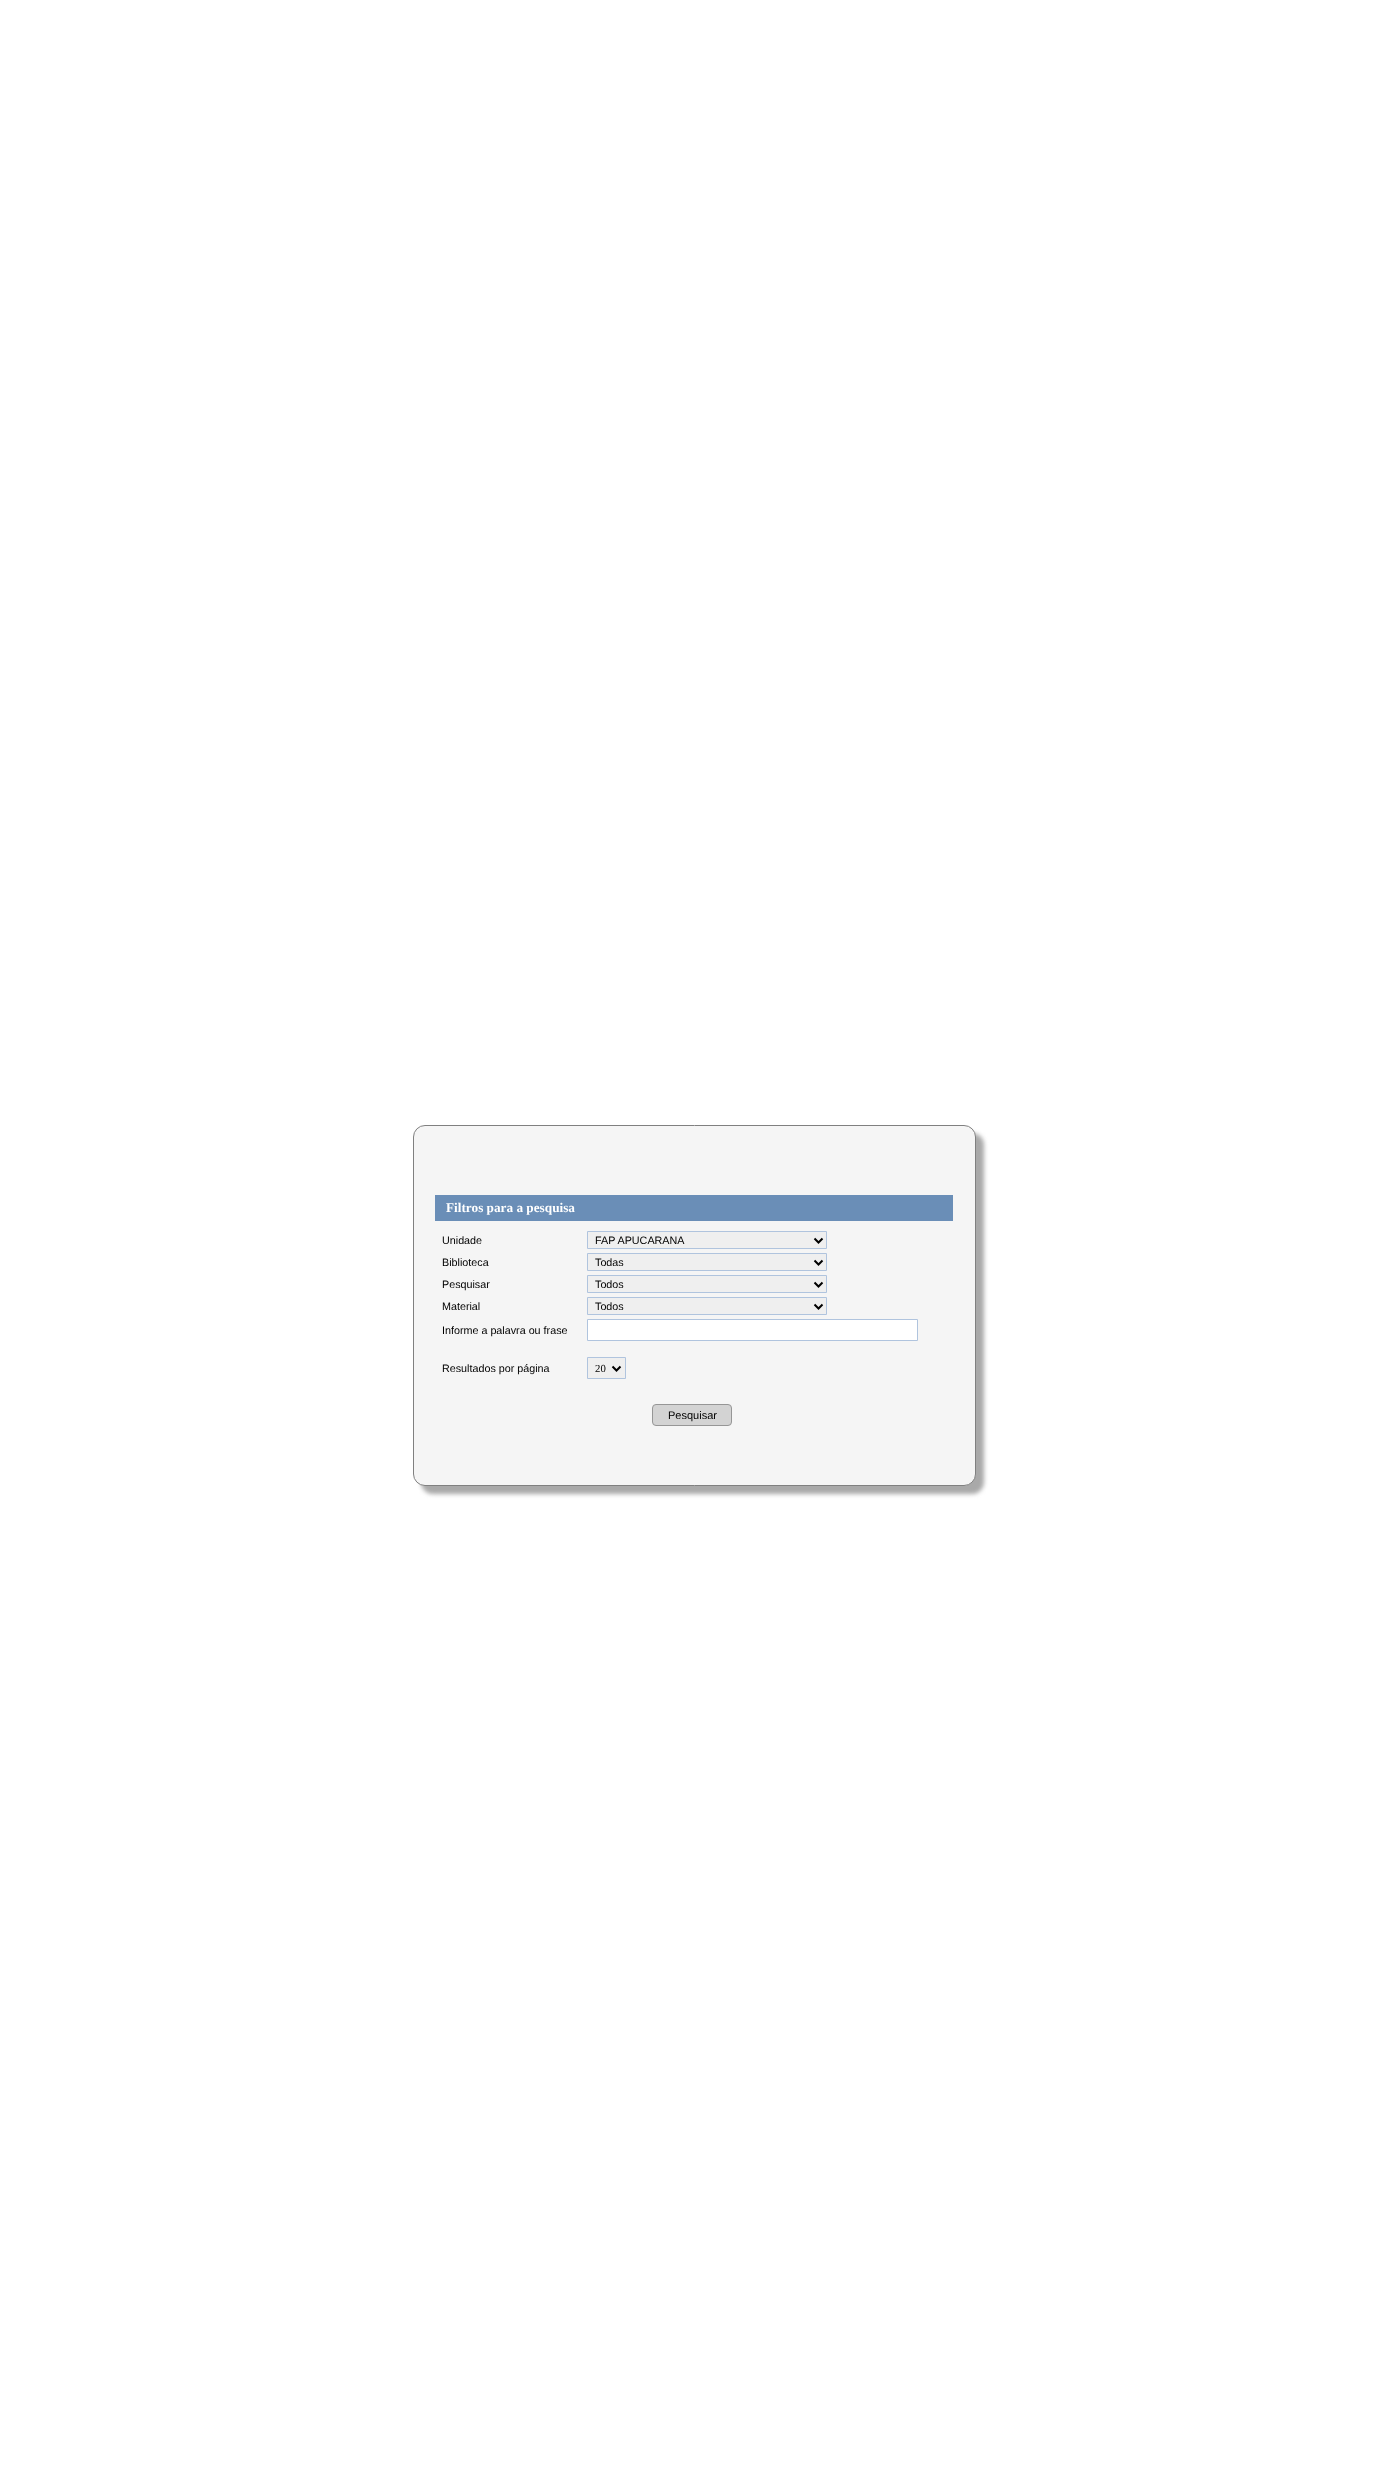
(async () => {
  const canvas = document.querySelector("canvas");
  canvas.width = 1388;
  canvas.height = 2489;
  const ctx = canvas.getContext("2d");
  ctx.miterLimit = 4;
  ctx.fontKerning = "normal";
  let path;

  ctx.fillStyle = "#ffffff";
  ctx.fillRect(0, 0, 1388, 2489);
  ctx.fillStyle = "#a9a9a9";
  ctx.filter = "blur(2px)";
  ctx.beginPath();
  ctx.roundRect(421, 1133, 563, 361, 12);
  ctx.fill();
  ctx.filter = "none";
  ctx.fillStyle = "#f5f5f5";
  ctx.beginPath();
  ctx.roundRect(413.5, 1125.5, 562, 360, 11.5);
  ctx.fill();
  ctx.strokeStyle = "#808080";
  ctx.stroke();
  ctx.fillStyle = "#6a8eb7";
  ctx.fillRect(435, 1195, 518, 26);
  ctx.fillStyle = "#efefef";
  ctx.beginPath();
  ctx.rect(587.5, 1231.5, 239, 17);
  ctx.fill();
  ctx.strokeStyle = "#b0c4de";
  ctx.stroke();
  path = new Path2D("M814.5 1238.5L818.5 1242.5L822.5 1238.5");
  ctx.strokeStyle = "#000000";
  ctx.lineWidth = 2;
  ctx.stroke(path);
  ctx.beginPath();
  ctx.rect(587.5, 1253.5, 239, 17);
  ctx.fill();
  ctx.strokeStyle = "#b0c4de";
  ctx.lineWidth = 1;
  ctx.stroke();
  path = new Path2D("M814.5 1260.5L818.5 1264.5L822.5 1260.5");
  ctx.strokeStyle = "#000000";
  ctx.lineWidth = 2;
  ctx.stroke(path);
  ctx.beginPath();
  ctx.rect(587.5, 1275.5, 239, 17);
  ctx.fill();
  ctx.strokeStyle = "#b0c4de";
  ctx.lineWidth = 1;
  ctx.stroke();
  path = new Path2D("M814.5 1282.5L818.5 1286.5L822.5 1282.5");
  ctx.strokeStyle = "#000000";
  ctx.lineWidth = 2;
  ctx.stroke(path);
  ctx.beginPath();
  ctx.rect(587.5, 1297.5, 239, 17);
  ctx.fill();
  ctx.strokeStyle = "#b0c4de";
  ctx.lineWidth = 1;
  ctx.stroke();
  path = new Path2D("M814.5 1304.5L818.5 1308.5L822.5 1304.5");
  ctx.strokeStyle = "#000000";
  ctx.lineWidth = 2;
  ctx.stroke(path);
  ctx.fillStyle = "#ffffff";
  ctx.beginPath();
  ctx.rect(587.5, 1319.5, 330, 21);
  ctx.fill();
  ctx.strokeStyle = "#b0c4de";
  ctx.lineWidth = 1;
  ctx.stroke();
  ctx.fillStyle = "#efefef";
  ctx.beginPath();
  ctx.rect(587.5, 1357.5, 38, 21);
  ctx.fill();
  ctx.stroke();
  path = new Path2D("M612.5 1366.5L616.5 1370.5L620.5 1366.5");
  ctx.strokeStyle = "#000000";
  ctx.lineWidth = 2;
  ctx.stroke(path);
  ctx.fillStyle = "#d3d3d3";
  ctx.beginPath();
  ctx.roundRect(652.5, 1404.5, 79, 21, 3.5);
  ctx.fill();
  ctx.strokeStyle = "#969696";
  ctx.lineWidth = 1;
  ctx.stroke();
  ctx.font = "bold 13.25px Liberation Serif";
  ctx.fillStyle = "#ffffff";
  ctx.fillText("Filtros para a pesquisa", 446, 1212);
  ctx.font = "10.75px Liberation Sans";
  ctx.fillStyle = "#000000";
  for (const [text, x, y] of [
    ["Unidade", 442, 1244],
    ["FAP APUCARANA", 595, 1244],
    ["Biblioteca", 442, 1266],
    ["Todas", 595, 1266],
    ["Pesquisar", 442, 1288],
    ["Todos", 595, 1288],
    ["Material", 442, 1310],
    ["Todos", 595, 1310],
    ["Informe a palavra ou frase", 442, 1334],
    ["Resultados por página", 442, 1372],
  ]) {
    ctx.fillText(text, x, y);
  }
  ctx.font = "10.75px Liberation Serif";
  ctx.fillText("20", 595, 1372);
  ctx.font = "11px Liberation Sans";
  ctx.fillText("Pesquisar", 668, 1419);
})();
